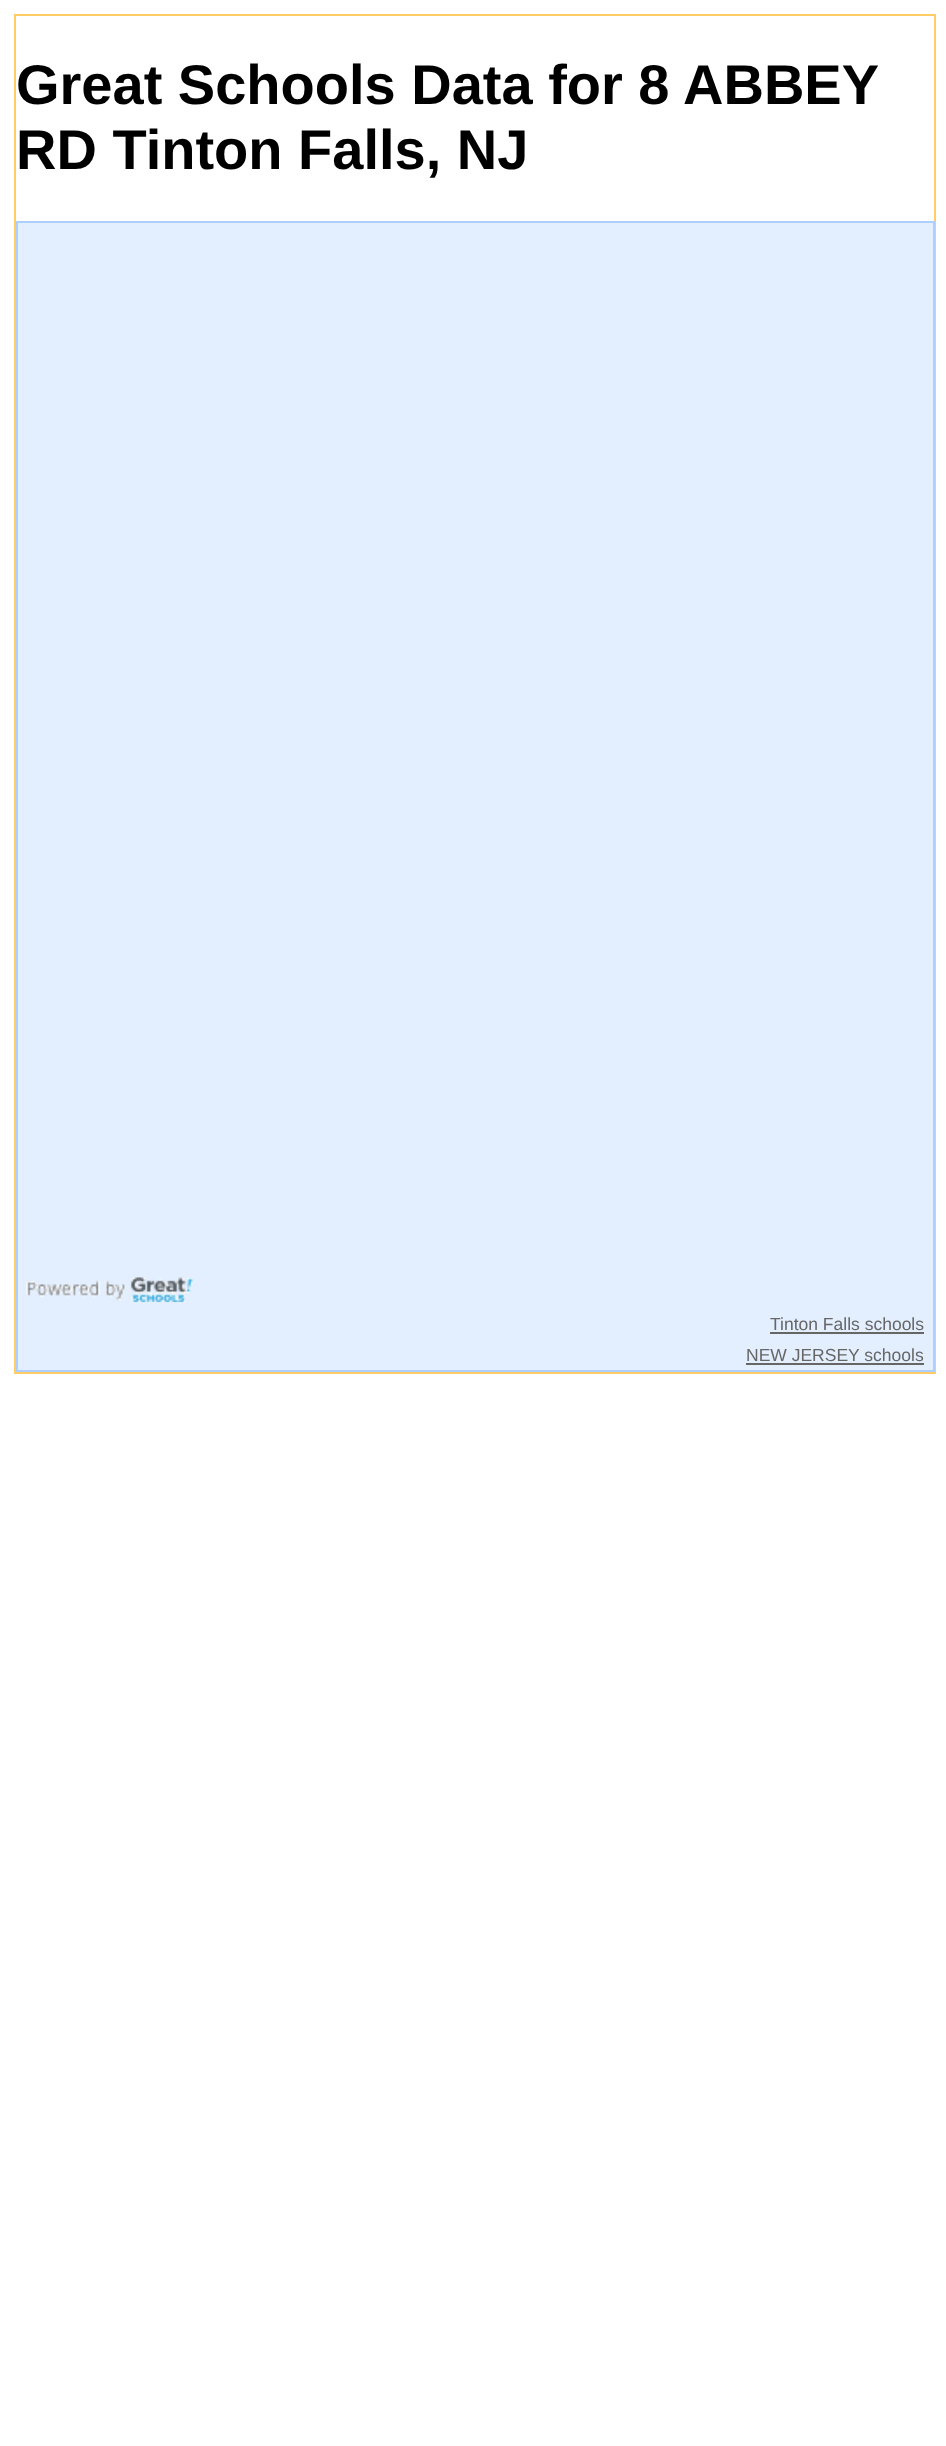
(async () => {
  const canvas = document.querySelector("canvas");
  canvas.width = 946;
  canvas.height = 2446;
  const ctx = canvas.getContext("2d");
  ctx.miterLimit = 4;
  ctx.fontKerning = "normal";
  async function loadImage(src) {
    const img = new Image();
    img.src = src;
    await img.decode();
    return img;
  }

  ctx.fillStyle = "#ffffff";
  ctx.fillRect(0, 0, 946, 2446);
  ctx.strokeStyle = "#ffcc66";
  ctx.lineWidth = 2;
  ctx.strokeRect(15, 15, 920, 1358);
  ctx.fillStyle = "#e3efff";
  ctx.beginPath();
  ctx.rect(17, 222, 917, 1149);
  ctx.fill();
  ctx.strokeStyle = "#adcfff";
  ctx.stroke();
  ctx.drawImage(await loadImage("img/1.png"), 26, 1277, 167, 25);
  ctx.fillStyle = "#666666";
  ctx.fillRect(770, 1332, 154, 2);
  ctx.fillRect(746, 1363, 178, 2);
  ctx.font = "bold 56px Liberation Sans";
  ctx.fillStyle = "#000000";
  ctx.fillText("Great Schools Data for 8 ABBEY", 16, 104);
  ctx.fillText("RD Tinton Falls, NJ", 16, 169);
  ctx.font = "17.5px Liberation Sans";
  ctx.fillStyle = "#666666";
  ctx.fillText("Tinton Falls schools", 770, 1330);
  ctx.fillText("NEW JERSEY schools", 746, 1361);
})();
